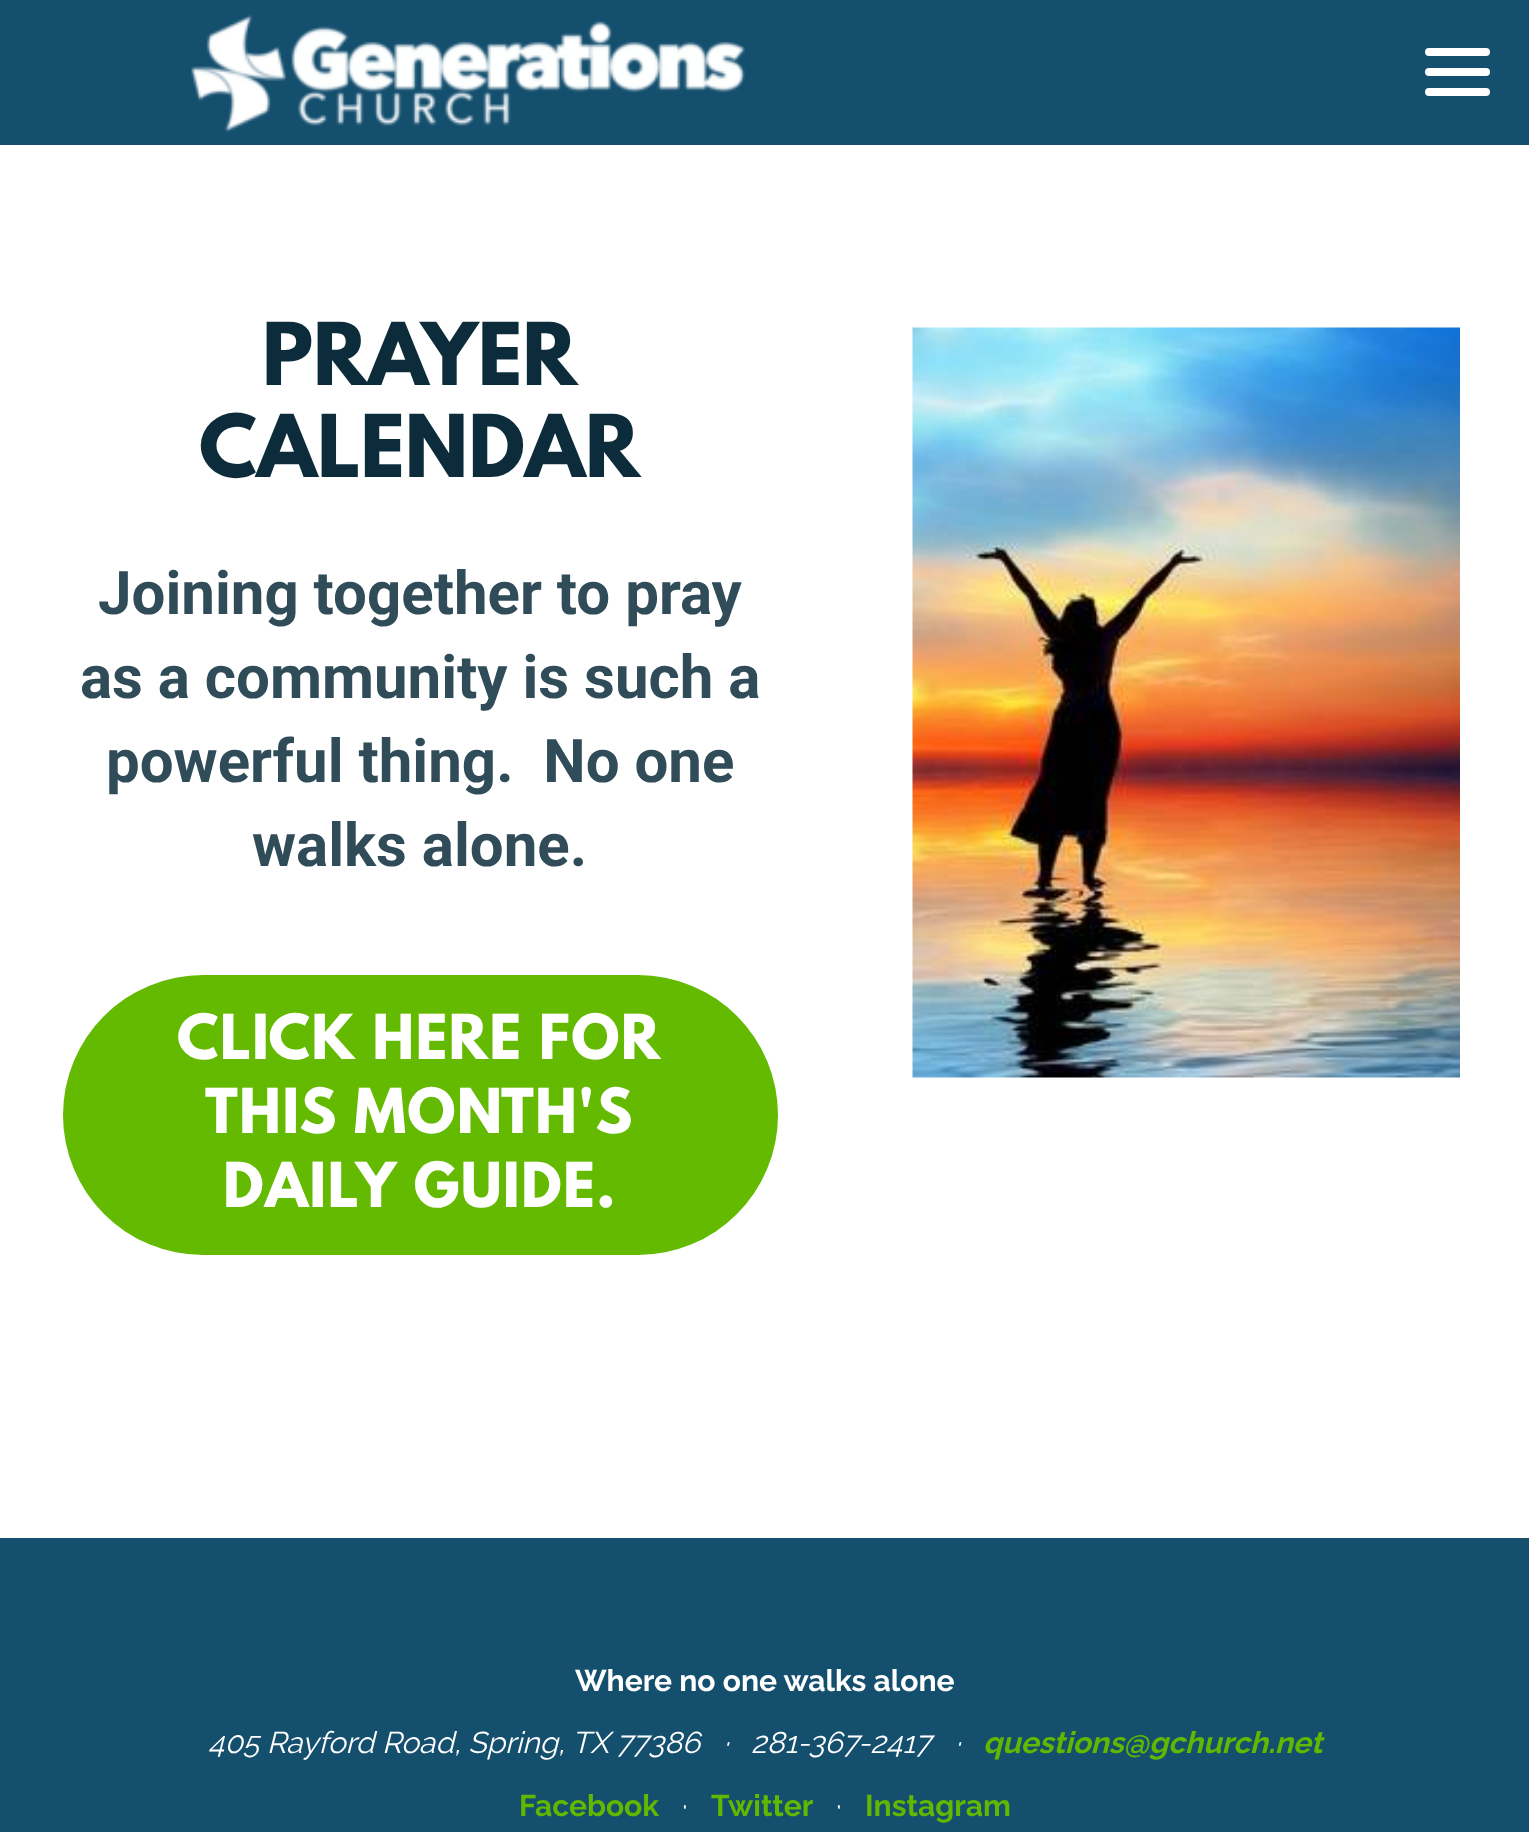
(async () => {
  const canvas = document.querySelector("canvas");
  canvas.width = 1529;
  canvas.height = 1832;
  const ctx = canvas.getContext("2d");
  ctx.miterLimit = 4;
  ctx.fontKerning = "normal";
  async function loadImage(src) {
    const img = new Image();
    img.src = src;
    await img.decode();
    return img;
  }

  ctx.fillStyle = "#154f6e";
  ctx.fillRect(0, 0, 1529, 1832);
  ctx.drawImage(await loadImage("img/1.png"), 191, 15, 554, 117);
  ctx.fillStyle = "#ffffff";
  ctx.beginPath();
  ctx.roundRect(1425, 48, 65, 8, 4);
  ctx.fill();
  ctx.beginPath();
  ctx.roundRect(1425, 68, 65, 8, 4);
  ctx.fill();
  ctx.beginPath();
  ctx.roundRect(1425, 88, 65, 8, 4);
  ctx.fill();
  ctx.fillRect(0, 145, 1529, 1393);
  ctx.fillStyle = "#63ba00";
  ctx.beginPath();
  ctx.roundRect(63, 975, 715, 280, 140);
  ctx.fill();
  ctx.drawImage(await loadImage("img/2.png"), 912, 327, 548, 751);
  ctx.font = "bold 76.75px League Spartan";
  ctx.fillStyle = "#0c2c3b";
  ctx.fillText("PRAYER", 262, 385);
  ctx.fillText("CALENDAR", 199, 477);
  ctx.font = "bold 60px Roboto";
  ctx.fillStyle = "#304c58";
  for (const [text, x, y] of [
    ["Joining together to pray", 98, 614],
    ["as a community is such a", 80, 698],
    ["powerful thing.  No one", 106, 782],
    ["walks alone.", 252, 866],
  ]) {
    ctx.fillText(text, x, y);
  }
  ctx.letterSpacing = "1.3px";
  ctx.font = "bold 55px League Spartan";
  ctx.fillStyle = "#ffffff";
  for (const [text, x, y] of [
    ["CLICK HERE FOR", 177, 1059],
    ["THIS MONTH'S", 205, 1133],
    ["DAILY GUIDE.", 223, 1207],
  ]) {
    ctx.fillText(text, x, y);
  }
  ctx.letterSpacing = "0px";
  ctx.font = "bold 30px Raleway";
  ctx.fillText("Where no one walks alone", 575, 1691);
  ctx.font = "italic 30px Raleway";
  for (const [text, x, y] of [
    ["405 Rayford Road, Spring, TX 77386   ·", 208, 1753],
    ["281-367-2417", 751, 1753],
    ["·", 955, 1753],
  ]) {
    ctx.fillText(text, x, y);
  }
  ctx.font = "italic bold 30px Raleway";
  ctx.fillStyle = "#62b800";
  ctx.fillText("questions@gchurch.net", 983, 1753);
  ctx.font = "bold 30px Raleway";
  ctx.fillText("Facebook", 519, 1816);
  ctx.font = "30px Raleway";
  ctx.fillStyle = "#ffffff";
  ctx.fillText("·", 682, 1816);
  ctx.font = "bold 30px Raleway";
  ctx.fillStyle = "#62b800";
  ctx.fillText("Twitter", 711, 1816);
  ctx.font = "30px Raleway";
  ctx.fillStyle = "#ffffff";
  ctx.fillText("·", 836, 1816);
  ctx.font = "bold 30px Raleway";
  ctx.fillStyle = "#62b800";
  ctx.fillText("Instagram", 865, 1816);
})();
